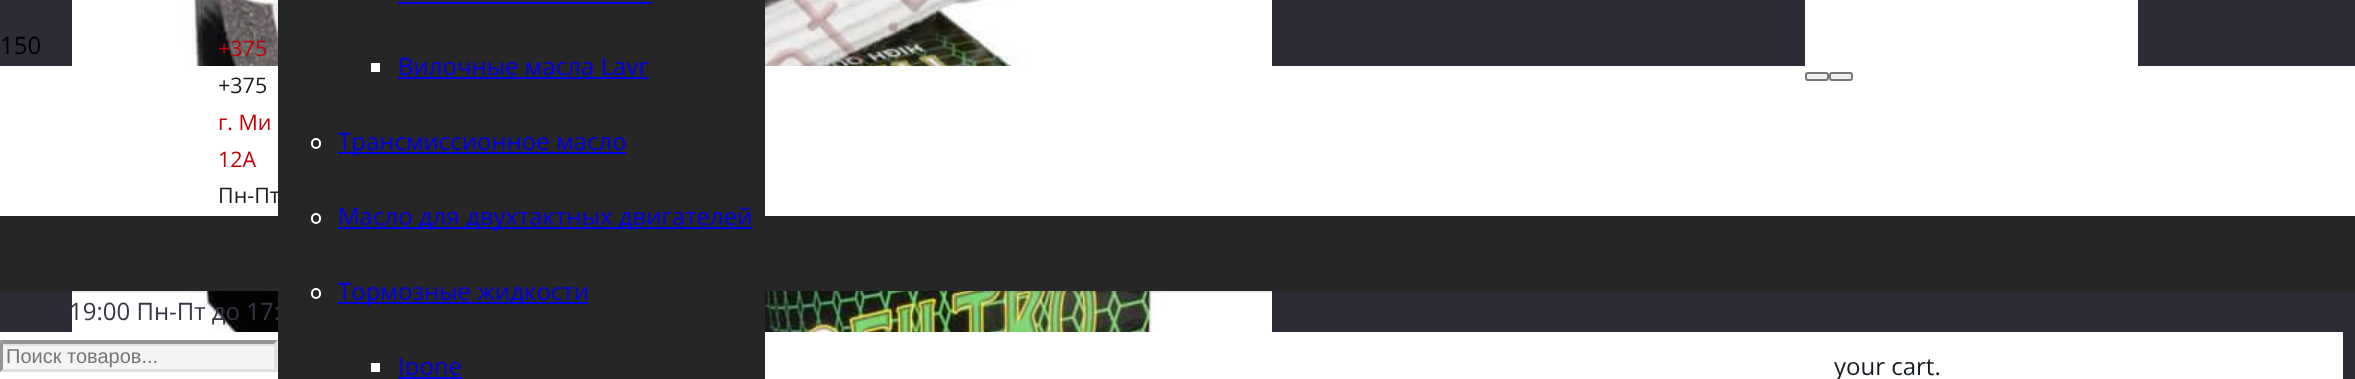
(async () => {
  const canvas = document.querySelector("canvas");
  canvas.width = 2355;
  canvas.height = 379;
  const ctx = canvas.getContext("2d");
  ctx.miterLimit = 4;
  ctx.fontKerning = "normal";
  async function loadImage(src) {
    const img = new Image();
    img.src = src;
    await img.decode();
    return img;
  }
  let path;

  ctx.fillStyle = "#2b2c36";
  ctx.fillRect(0, 0, 2355, 379);
  ctx.drawImage(await loadImage("img/1.png"), 72, 0, 1200, 332);
  ctx.fillStyle = "#ffffff";
  ctx.fillRect(0, 66, 2355, 150);
  ctx.fillRect(1805, 0, 333, 66);
  ctx.fillStyle = "#efefef";
  ctx.beginPath();
  ctx.roundRect(1806, 73, 22, 7, 2);
  ctx.fill();
  ctx.strokeStyle = "#767676";
  ctx.lineWidth = 2;
  ctx.stroke();
  ctx.beginPath();
  ctx.roundRect(1830, 73, 22, 7, 2);
  ctx.fill();
  ctx.stroke();
  for (const [x, y, w, h, color] of [
    [0, 332, 2343, 47, "#ffffff"],
    [0, 341, 278, 31, "#f2f4f5"],
    [3, 344, 272, 2, "#dfe0e1"],
  ]) {
    ctx.fillStyle = color;
    ctx.fillRect(x, y, w, h);
  }
  ctx.fillStyle = "#939597";
  path = new Path2D("M0 340H278L274 344H3Z");
  ctx.fill(path);
  ctx.fillStyle = "#dce0e3";
  path = new Path2D("M277.5 340.5V372L274.5 369V343.5Z");
  ctx.fill(path);
  path = new Path2D("M278 372H0L3 369H274Z");
  ctx.fill(path);
  ctx.fillStyle = "#939597";
  path = new Path2D("M0 372V340.5L3 343.5V369Z");
  ctx.fill(path);
  ctx.fillStyle = "rgba(0, 0, 0, 0.08)";
  ctx.fillRect(0, 291, 2355, 2);
  ctx.fillStyle = "#262626";
  ctx.fillRect(0, 216, 2355, 75);
  ctx.font = "24px Open Sans";
  ctx.fillStyle = "#000000";
  ctx.fillText("150", 0, 54);
  ctx.font = "21.5px Open Sans";
  ctx.fillStyle = "#c60008";
  ctx.fillText("+375", 218, 56);
  ctx.fillStyle = "#171c21";
  ctx.fillText("+375", 218, 93);
  ctx.fillStyle = "#c60008";
  ctx.fillText("г. Ми", 218, 130);
  ctx.fillText("12А", 218, 167);
  ctx.fillStyle = "#171c21";
  ctx.fillText("Пн-Пт", 218, 203);
  ctx.font = "24px Open Sans";
  ctx.fillText("your cart.", 1834, 375);
  ctx.fillStyle = "#363845";
  ctx.fillText("19:00 Пн-Пт до 17:", 69, 320);
  ctx.font = "20px Liberation Sans";
  ctx.fillStyle = "#757575";
  ctx.fillText("Поиск товаров...", 6, 363);
  for (const [x, y, w, h, color] of [
    [278, 0, 487, 379, "#262626"],
    [398, 2, 253, 2, "#0000ee"],
    [371, 63, 9, 9, "#ffffff"],
  ]) {
    ctx.fillStyle = color;
    ctx.fillRect(x, y, w, h);
  }
  ctx.font = "24px Open Sans";
  ctx.fillStyle = "#0000ee";
  ctx.fillText("Вилочные масла Lavr", 398, 75);
  ctx.fillRect(398, 77, 250, 2);
  ctx.beginPath();
  ctx.roundRect(312, 139, 8, 9, 4);
  ctx.strokeStyle = "#ffffff";
  ctx.stroke();
  ctx.fillRect(338, 152, 288, 2);
  ctx.fillText("Трансмиссионное масло", 338, 150);
  ctx.beginPath();
  ctx.roundRect(312, 214, 8, 9, 4);
  ctx.stroke();
  ctx.fillRect(338, 227, 414, 2);
  ctx.fillText("Масло для двухтактных двигателей", 338, 225);
  ctx.beginPath();
  ctx.roundRect(312, 289, 8, 9, 4);
  ctx.stroke();
  ctx.fillRect(338, 302, 250, 2);
  ctx.fillText("Тормозные жидкости", 338, 300);
  ctx.fillStyle = "#ffffff";
  ctx.fillRect(371, 363, 9, 9);
  ctx.fillStyle = "#0000ee";
  ctx.fillRect(398, 377, 64, 2);
  ctx.fillText("Ipone", 398, 375);
})();
